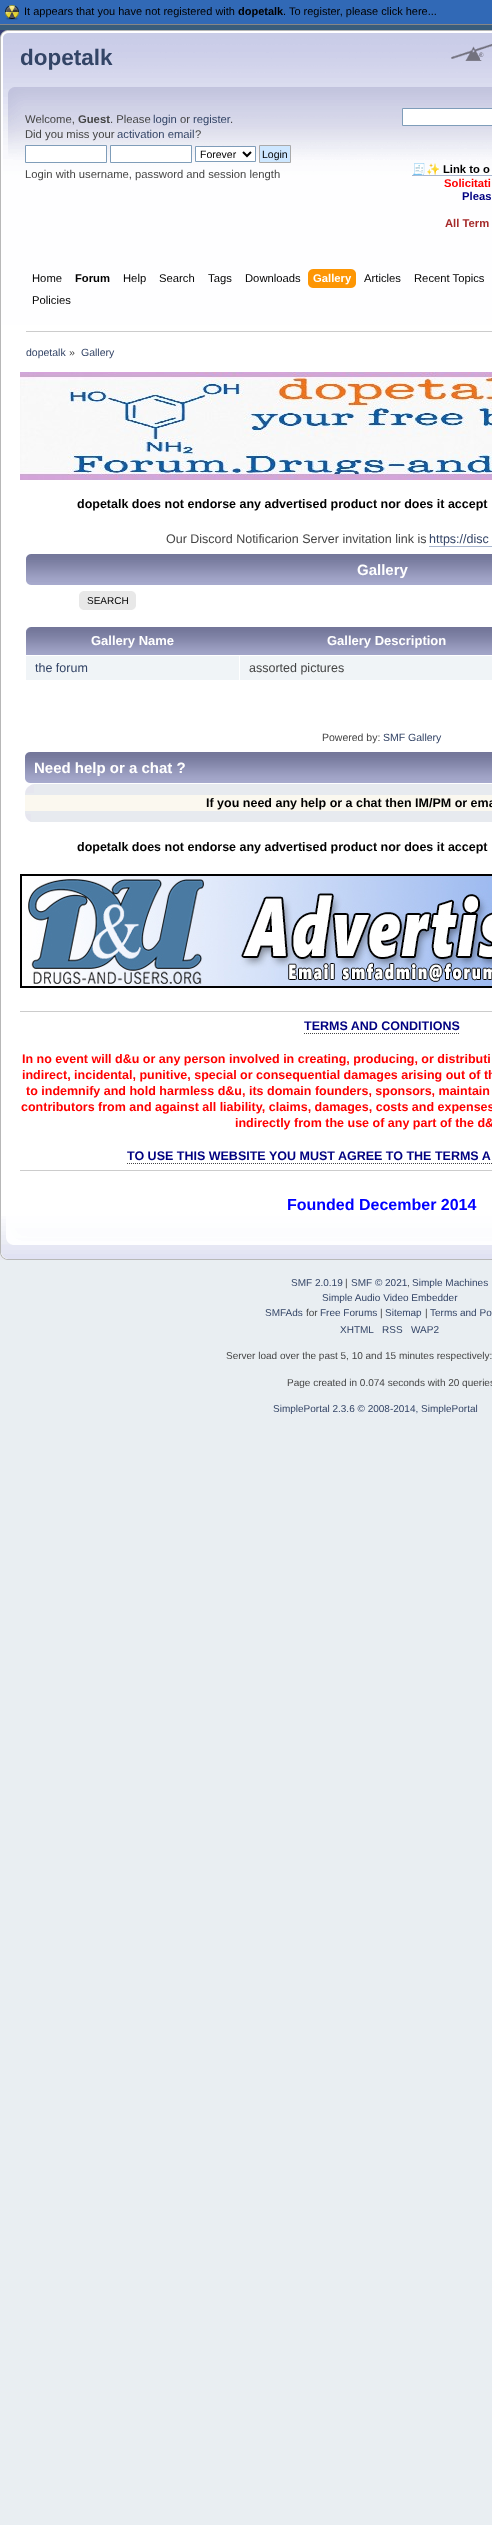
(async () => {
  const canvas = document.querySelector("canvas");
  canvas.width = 492;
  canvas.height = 2525;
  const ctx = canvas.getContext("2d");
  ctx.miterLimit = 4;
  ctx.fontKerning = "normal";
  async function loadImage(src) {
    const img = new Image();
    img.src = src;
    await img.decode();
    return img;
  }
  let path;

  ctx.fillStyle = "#e9eef2";
  ctx.fillRect(0, 0, 492, 2525);
  ctx.drawImage(await loadImage("img/1.png"), 0, 25, 492, 5);
  for (const [x, y, w, h, color] of [
    [1, 325, 491, 891, "#ffffff"],
    [0, 325, 1, 891, "#b7b7b7"],
    [0, 0, 492, 24, "#3169b6"],
    [0, 24, 492, 1, "#868686"],
  ]) {
    ctx.fillStyle = color;
    ctx.fillRect(x, y, w, h);
  }
  ctx.drawImage(await loadImage("img/2.png"), 5, 5, 14, 15);
  ctx.drawImage(await loadImage("img/3.png"), 26, 554, 466, 31);
  ctx.fillStyle = "#e8e8e8";
  ctx.fillRect(83, 591, 49, 19);
  ctx.drawImage(await loadImage("img/4.png"), 79, 591, 4, 19);
  ctx.drawImage(await loadImage("img/5.png"), 132, 591, 4, 19);
  ctx.drawImage(await loadImage("img/6.png"), 26, 627, 214, 28);
  ctx.drawImage(await loadImage("img/7.png"), 240, 627, 252, 28);
  for (const [x, y, w, h, color] of [
    [26, 656, 466, 24, "#f0f4f7"],
    [239, 655, 1, 26, "#ffffff"],
    [26, 331, 466, 1, "#cccccc"],
  ]) {
    ctx.fillStyle = color;
    ctx.fillRect(x, y, w, h);
  }
  ctx.drawImage(await loadImage("img/8.png"), 20, 372, 472, 108);
  ctx.fillStyle = "#a8b6cf";
  ctx.fillRect(429, 546, 63, 1);
  ctx.drawImage(await loadImage("img/9.png"), 25, 752, 467, 31);
  ctx.fillStyle = "#e7eaef";
  ctx.fillRect(25, 784, 467, 38);
  ctx.drawImage(await loadImage("img/10.png"), 25, 784, 9, 9);
  ctx.fillStyle = "#fbf8ef";
  ctx.fillRect(25, 795, 467, 16);
  ctx.drawImage(await loadImage("img/11.png"), 25, 814, 6, 8);
  ctx.drawImage(await loadImage("img/12.png"), 20, 874, 472, 114);
  ctx.fillStyle = "#cccccc";
  ctx.fillRect(20, 1011, 472, 1);
  path = new Path2D("M304 1033.5H460");
  ctx.strokeStyle = "#444444";
  ctx.setLineDash([1, 1]);
  ctx.stroke(path);
  path = new Path2D("M127 1163.5H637");
  ctx.stroke(path);
  ctx.fillRect(20, 1170, 472, 1);
  ctx.drawImage(await loadImage("img/13.png"), 0, 30, 492, 295);
  ctx.drawImage(await loadImage("img/14.png"), 451, 44, 41, 17);
  ctx.fillStyle = "#ffffff";
  ctx.beginPath();
  ctx.rect(25.5, 145.5, 81, 17);
  ctx.fill();
  ctx.strokeStyle = "#7f9db9";
  ctx.setLineDash([]);
  ctx.stroke();
  ctx.beginPath();
  ctx.rect(110.5, 145.5, 81, 17);
  ctx.fill();
  ctx.stroke();
  ctx.beginPath();
  ctx.rect(195.5, 146.5, 60, 15);
  ctx.fill();
  ctx.stroke();
  path = new Path2D("M243 152L247 156L251 152");
  ctx.strokeStyle = "#000000";
  ctx.lineWidth = 2;
  ctx.stroke(path);
  ctx.fillStyle = "#cde7ff";
  ctx.beginPath();
  ctx.rect(259.5, 145.5, 31, 17);
  ctx.fill();
  ctx.strokeStyle = "#aaaaaa";
  ctx.lineWidth = 1;
  ctx.stroke();
  ctx.fillStyle = "#ffffff";
  ctx.beginPath();
  ctx.rect(402.5, 108.5, 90, 17);
  ctx.fill();
  ctx.strokeStyle = "#7f9db9";
  ctx.stroke();
  ctx.fillStyle = "#a8b6cf";
  ctx.fillRect(412, 175, 80, 1);
  ctx.drawImage(await loadImage("img/15.png"), 313, 269, 43, 19);
  ctx.drawImage(await loadImage("img/16.png"), 308, 269, 5, 19);
  ctx.drawImage(await loadImage("img/17.png"), 0, 1216, 492, 44);
  ctx.font = "11px Liberation Sans";
  ctx.fillStyle = "#000000";
  ctx.fillText("It appears that you have not registered with", 24, 15);
  ctx.font = "bold 11px Liberation Sans";
  ctx.fillText("dopetalk", 238, 15);
  ctx.font = "11px Liberation Sans";
  ctx.fillText(". To register, please click here...", 283, 15);
  ctx.font = "bold 15px Liberation Sans";
  ctx.fillStyle = "#ffffff";
  ctx.fillText("Gallery", 357, 575);
  ctx.font = "10px Liberation Sans";
  ctx.fillStyle = "#000000";
  ctx.fillText("SEARCH", 87, 604);
  ctx.font = "bold 13px Liberation Sans";
  ctx.fillStyle = "#ffffff";
  ctx.fillText("Gallery Name", 91, 645);
  ctx.fillText("Gallery Description", 327, 645);
  ctx.font = "12.5px Liberation Sans";
  ctx.fillStyle = "#334466";
  ctx.fillText("the forum", 35, 672);
  ctx.fillStyle = "#444444";
  ctx.fillText("assorted pictures", 249, 672);
  ctx.font = "10.5px Liberation Sans";
  ctx.fillText("Powered by:", 322, 741);
  ctx.fillStyle = "#334466";
  ctx.fillText("SMF Gallery", 383, 741);
  ctx.fillText("dopetalk", 26, 356);
  ctx.fillStyle = "#444444";
  ctx.fillText("»", 69, 356);
  ctx.fillStyle = "#334466";
  ctx.fillText("Gallery", 81, 356);
  ctx.font = "bold 12.5px Liberation Sans";
  ctx.fillStyle = "#000000";
  ctx.fillText("dopetalk does not endorse any advertised product nor does it accept", 77, 508);
  ctx.font = "12.5px Liberation Sans";
  ctx.fillStyle = "#444444";
  ctx.fillText("Our Discord Notificarion Server invitation link is", 166, 543);
  ctx.fillStyle = "#334466";
  ctx.fillText("https://disc", 429, 543);
  ctx.font = "bold 15px Liberation Sans";
  ctx.fillStyle = "#ffffff";
  ctx.fillText("Need help or a chat ?", 34, 773);
  ctx.font = "bold 12.5px Liberation Sans";
  ctx.fillStyle = "#000000";
  ctx.fillText("If you need any help or a chat then IM/PM or ema", 206, 807);
  ctx.fillText("dopetalk does not endorse any advertised product nor does it accept", 77, 851);
  ctx.fillStyle = "#000080";
  ctx.fillText("TERMS AND CONDITIONS", 304, 1030);
  ctx.fillStyle = "#ff0000";
  for (const [text, x, y] of [
    ["In no event will d&u or any person involved in creating, producing, or distributi", 22, 1063],
    ["indirect, incidental, punitive, special or consequential damages arising out of th", 22, 1079],
    ["to indemnify and hold harmless d&u, its domain founders, sponsors, maintain", 26, 1095],
    ["contributors from and against all liability, claims, damages, costs and expenses", 21, 1111],
    ["indirectly from the use of any part of the d&", 235, 1127],
  ]) {
    ctx.fillText(text, x, y);
  }
  ctx.fillStyle = "#000080";
  ctx.fillText("TO USE THIS WEBSITE YOU MUST AGREE TO THE TERMS A", 127, 1160);
  ctx.font = "bold 16px Liberation Sans";
  ctx.fillStyle = "#0000ff";
  ctx.fillText("Founded December 2014", 287, 1210);
  ctx.font = "bold 22.5px Liberation Sans";
  ctx.fillStyle = "#334466";
  ctx.fillText("dopetalk", 20, 65);
  ctx.font = "11.25px Liberation Sans";
  ctx.fillStyle = "#444444";
  ctx.fillText("Welcome,", 25, 123);
  ctx.font = "bold 11.25px Liberation Sans";
  ctx.fillText("Guest", 78, 123);
  ctx.font = "11.25px Liberation Sans";
  ctx.fillText(". Please", 110, 123);
  ctx.fillStyle = "#334466";
  ctx.fillText("login", 153, 123);
  ctx.fillStyle = "#444444";
  ctx.fillText("or", 180, 123);
  ctx.fillStyle = "#334466";
  ctx.fillText("register", 193, 123);
  ctx.fillStyle = "#444444";
  ctx.fillText(".", 230, 123);
  ctx.fillText("Did you miss your", 25, 138);
  ctx.fillStyle = "#334466";
  ctx.fillText("activation email", 117, 138);
  ctx.fillStyle = "#444444";
  ctx.fillText("?", 195, 138);
  ctx.font = "10.5px Liberation Sans";
  ctx.fillStyle = "#000000";
  ctx.fillText("Forever", 200, 158);
  ctx.fillText("Login", 262, 158);
  ctx.font = "11.25px Liberation Sans";
  ctx.fillStyle = "#444444";
  ctx.fillText("Login with username, password and session length", 25, 178);
  ctx.font = "bold 11.25px Noto Color Emoji";
  ctx.fillStyle = "#000000";
  ctx.fillText("🧾✨", 412, 173);
  ctx.font = "bold 11.25px Liberation Sans";
  ctx.fillText("Link to o", 443, 173);
  ctx.fillStyle = "#ff0000";
  ctx.fillText("Solicitati", 444, 187);
  ctx.fillStyle = "#000080";
  ctx.fillText("Pleas", 462, 200);
  ctx.fillStyle = "#a52a2a";
  ctx.fillText("All Term", 445, 227);
  ctx.font = "11.25px Liberation Sans";
  ctx.fillStyle = "#000000";
  ctx.fillText("Home", 32, 282);
  ctx.font = "bold 11.25px Liberation Sans";
  ctx.fillText("Forum", 75, 282);
  ctx.font = "11.25px Liberation Sans";
  for (const [text, x, y] of [
    ["Help", 123, 282],
    ["Search", 159, 282],
    ["Tags", 208, 282],
    ["Downloads", 245, 282],
  ]) {
    ctx.fillText(text, x, y);
  }
  ctx.font = "bold 11.25px Liberation Sans";
  ctx.fillStyle = "#ffffff";
  ctx.fillText("Gallery", 313, 282);
  ctx.font = "11.25px Liberation Sans";
  ctx.fillStyle = "#000000";
  for (const [text, x, y] of [
    ["Articles", 364, 282],
    ["Recent Topics", 414, 282],
    ["Policies", 32, 304],
  ]) {
    ctx.fillText(text, x, y);
  }
  ctx.font = "10px Liberation Sans";
  ctx.fillStyle = "#334466";
  ctx.fillText("SMF 2.0.19", 291, 1286);
  ctx.fillStyle = "#444444";
  ctx.fillText("|", 345, 1286);
  ctx.fillStyle = "#334466";
  ctx.fillText("SMF © 2021", 351, 1286);
  ctx.fillStyle = "#444444";
  ctx.fillText(",", 407, 1286);
  ctx.fillStyle = "#334466";
  for (const [text, x, y] of [
    ["Simple Machines", 412, 1286],
    ["Simple Audio Video Embedder", 322, 1301],
    ["SMFAds", 265, 1316],
  ]) {
    ctx.fillText(text, x, y);
  }
  ctx.fillStyle = "#444444";
  ctx.fillText("for", 306, 1316);
  ctx.fillStyle = "#334466";
  ctx.fillText("Free Forums", 320, 1316);
  ctx.fillStyle = "#444444";
  ctx.fillText("|", 380, 1316);
  ctx.fillStyle = "#334466";
  ctx.fillText("Sitemap", 385, 1316);
  ctx.fillStyle = "#444444";
  ctx.fillText("|", 425, 1316);
  ctx.fillStyle = "#334466";
  for (const [text, x, y] of [
    ["Terms and Po", 430, 1316],
    ["XHTML", 340, 1333],
    ["RSS", 382, 1333],
    ["WAP2", 411, 1333],
  ]) {
    ctx.fillText(text, x, y);
  }
  ctx.fillStyle = "#444444";
  ctx.fillText("Server load over the past 5, 10 and 15 minutes respectively:", 226, 1359);
  ctx.fillText("Page created in 0.074 seconds with 20 queries", 287, 1386);
  ctx.fillStyle = "#334466";
  ctx.fillText("SimplePortal 2.3.6 © 2008-2014, SimplePortal", 273, 1412);
})();
